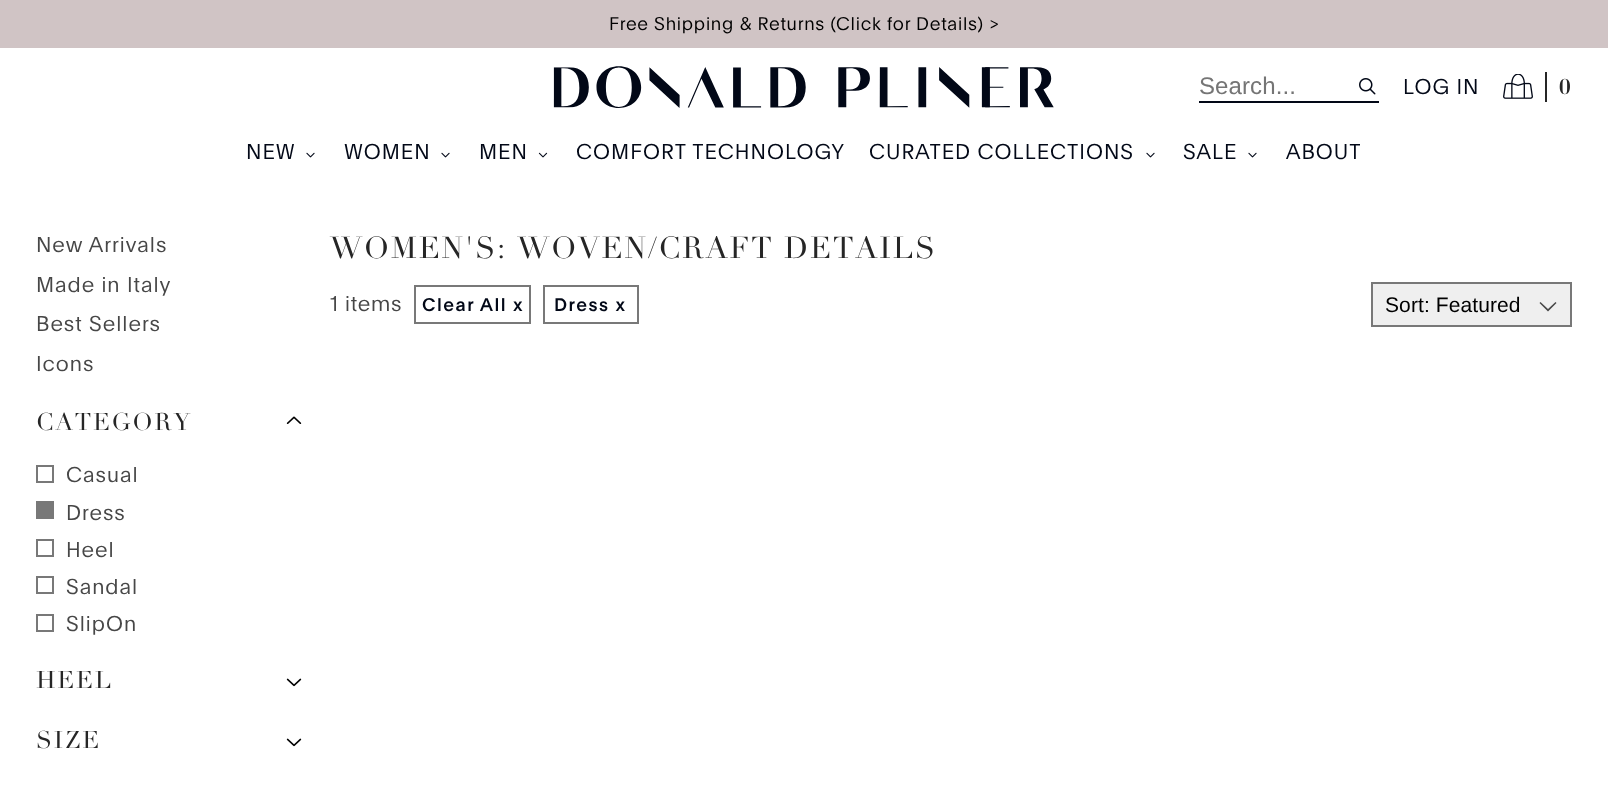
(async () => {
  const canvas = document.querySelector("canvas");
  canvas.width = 1608;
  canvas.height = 794;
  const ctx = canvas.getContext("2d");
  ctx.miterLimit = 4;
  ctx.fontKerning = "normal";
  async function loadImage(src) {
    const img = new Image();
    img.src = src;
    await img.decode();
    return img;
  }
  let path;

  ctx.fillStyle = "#ffffff";
  ctx.fillRect(0, 0, 1608, 794);
  ctx.fillStyle = "#d0c4c5";
  ctx.fillRect(0, 0, 1608, 48);
  ctx.drawImage(await loadImage("img/1.png"), 553, 66, 501, 42);
  ctx.fillStyle = "#020817";
  ctx.fillRect(1199, 101, 180, 2);
  ctx.drawImage(await loadImage("img/2.png"), 1359, 78, 17, 17);
  ctx.drawImage(await loadImage("img/3.png"), 1503, 74, 30, 25);
  ctx.fillStyle = "#262626";
  ctx.fillRect(1545, 72, 2, 30);
  ctx.drawImage(await loadImage("img/4.png"), 306, 152, 9, 6);
  ctx.drawImage(await loadImage("img/4.png"), 441, 152, 9, 6);
  ctx.drawImage(await loadImage("img/5.png"), 538, 152, 10, 6);
  ctx.drawImage(await loadImage("img/4.png"), 1146, 152, 9, 6);
  ctx.drawImage(await loadImage("img/4.png"), 1248, 152, 9, 6);
  ctx.drawImage(await loadImage("img/6.png"), 286, 416, 16, 8);
  ctx.strokeStyle = "#787878";
  ctx.lineWidth = 2;
  ctx.strokeRect(37, 466, 16, 16);
  ctx.fillStyle = "#787878";
  ctx.fillRect(36, 501, 18, 18);
  ctx.strokeRect(37, 540, 16, 16);
  ctx.strokeRect(37, 577, 16, 16);
  ctx.strokeRect(37, 615, 16, 16);
  ctx.drawImage(await loadImage("img/7.png"), 286, 678, 16, 9);
  ctx.drawImage(await loadImage("img/7.png"), 286, 738, 16, 9);
  ctx.strokeRect(415, 286, 115, 37);
  ctx.strokeRect(544, 286, 94, 37);
  ctx.fillStyle = "#efefef";
  ctx.beginPath();
  ctx.rect(1372, 283, 199, 43);
  ctx.fill();
  ctx.stroke();
  ctx.fillStyle = "#484848";
  path = new Path2D("M1556.5 303L1548 311.5V309L1555.5 302ZM1548 311.5L1539.5 303L1540.5 302L1548 309Z");
  ctx.fill(path);
  ctx.letterSpacing = "0.75px";
  ctx.font = "300 18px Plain";
  ctx.fillStyle = "#000000";
  ctx.fillText("Free Shipping & Returns (Click for Details) >", 609, 30);
  ctx.letterSpacing = "0.1px";
  ctx.font = "24px Liberation Sans";
  ctx.fillStyle = "#757575";
  ctx.fillText("Search...", 1199, 94);
  ctx.letterSpacing = "1px";
  ctx.font = "300 21px Plain";
  ctx.fillStyle = "#020817";
  ctx.fillText("LOG IN", 1403, 94);
  ctx.font = "bold 21px Didot";
  ctx.fillStyle = "#262626";
  ctx.fillText("0", 1559, 94);
  ctx.font = "300 21px Plain";
  ctx.fillStyle = "#020817";
  for (const [text, x, y] of [
    ["NEW", 246, 159],
    ["WOMEN", 344, 159],
    ["MEN", 479, 159],
    ["COMFORT TECHNOLOGY", 576, 159],
    ["CURATED COLLECTIONS", 869, 159],
    ["SALE", 1183, 159],
    ["ABOUT", 1286, 159],
  ]) {
    ctx.fillText(text, x, y);
  }
  ctx.fillStyle = "#474747";
  for (const [text, x, y] of [
    ["New Arrivals", 36, 252],
    ["Made in Italy", 36, 292],
    ["Best Sellers", 36, 331],
    ["Icons", 36, 371],
  ]) {
    ctx.fillText(text, x, y);
  }
  ctx.letterSpacing = "1.8px";
  ctx.font = "24px Didot";
  ctx.fillStyle = "#262626";
  ctx.fillText("CATEGORY", 36, 430);
  ctx.letterSpacing = "1px";
  ctx.font = "300 21px Plain";
  ctx.fillStyle = "#474747";
  for (const [text, x, y] of [
    ["Casual", 66, 482],
    ["Dress", 66, 520],
    ["Heel", 66, 557],
    ["Sandal", 66, 594],
    ["SlipOn", 66, 631],
  ]) {
    ctx.fillText(text, x, y);
  }
  ctx.letterSpacing = "1.8px";
  ctx.font = "24px Didot";
  ctx.fillStyle = "#262626";
  ctx.fillText("HEEL", 36, 688);
  ctx.fillText("SIZE", 36, 748);
  ctx.font = "30px Didot";
  ctx.fillText("WOMEN'S: WOVEN/CRAFT DETAILS", 330, 258);
  ctx.letterSpacing = "0.75px";
  ctx.font = "300 21px Plain";
  ctx.fillStyle = "#474747";
  ctx.fillText("1 items", 330, 311);
  ctx.letterSpacing = "1.5px";
  ctx.font = "500 18px Plain";
  ctx.fillStyle = "#020817";
  ctx.fillText("Clear All x", 422, 311);
  ctx.fillText("Dress x", 554, 311);
  ctx.letterSpacing = "0.1px";
  ctx.font = "21px Liberation Sans";
  ctx.fillStyle = "#000000";
  ctx.fillText("Sort: Featured", 1385, 312);
})();
